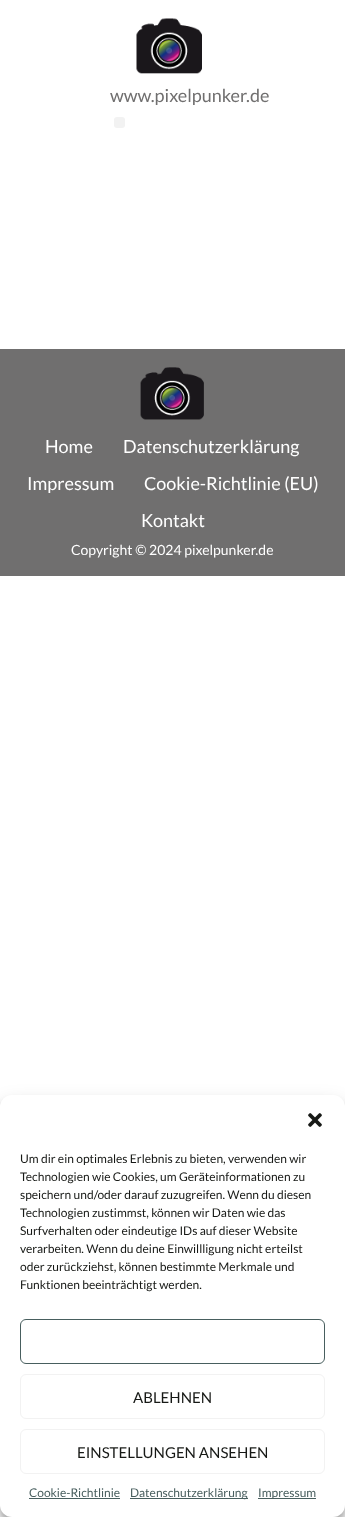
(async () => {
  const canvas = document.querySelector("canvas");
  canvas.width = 345;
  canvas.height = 1517;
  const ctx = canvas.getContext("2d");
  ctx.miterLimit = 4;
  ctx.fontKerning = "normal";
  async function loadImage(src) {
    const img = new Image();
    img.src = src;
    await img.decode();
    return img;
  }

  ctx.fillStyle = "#ffffff";
  ctx.fillRect(0, 0, 345, 1517);
  ctx.drawImage(await loadImage("img/1.png"), 136, 18, 66, 56);
  ctx.fillStyle = "#f2f2f2";
  ctx.beginPath();
  ctx.roundRect(114, 117, 11, 11, 3);
  ctx.fill();
  ctx.fillStyle = "#706f6f";
  ctx.fillRect(0, 349, 345, 227);
  ctx.drawImage(await loadImage("img/2.png"), 140, 367, 64, 53);
  ctx.fillStyle = "rgba(0, 0, 0, 0.23)";
  ctx.filter = "blur(3px)";
  ctx.beginPath();
  ctx.roundRect(0, 1101, 345, 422, 12);
  ctx.fill();
  ctx.filter = "none";
  ctx.fillStyle = "rgba(0, 0, 0, 0.19)";
  ctx.filter = "blur(10px)";
  ctx.beginPath();
  ctx.roundRect(0, 1105, 345, 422, 12);
  ctx.fill();
  ctx.filter = "none";
  ctx.fillStyle = "#ffffff";
  ctx.beginPath();
  ctx.roundRect(0, 1095, 345, 422, 12);
  ctx.fill();
  ctx.drawImage(await loadImage("img/3.png"), 308, 1113, 14, 14);
  ctx.beginPath();
  ctx.roundRect(20.5, 1319.5, 304, 44, 5.5);
  ctx.strokeStyle = "#485e5e";
  ctx.stroke();
  ctx.beginPath();
  ctx.roundRect(20.5, 1374.5, 304, 44, 5.5);
  ctx.strokeStyle = "#f2f2f2";
  ctx.stroke();
  ctx.beginPath();
  ctx.roundRect(20.5, 1429.5, 304, 44, 5.5);
  ctx.stroke();
  for (const [x, y, w, h, color] of [
    [29, 1498, 91, 1, "#485e5e"],
    [130, 1498, 118, 1, "#485e5e"],
    [258, 1498, 58, 1, "#485e5e"],
  ]) {
    ctx.fillStyle = color;
    ctx.fillRect(x, y, w, h);
  }
  ctx.font = "18px Lato";
  ctx.fillStyle = "#706f6f";
  ctx.fillText("www.pixelpunker.de", 110, 102);
  ctx.fillStyle = "#ffffff";
  for (const [text, x, y] of [
    ["Home", 45, 453],
    ["Datenschutzerklärung", 123, 453],
    ["Impressum", 27, 490],
    ["Cookie-Richtlinie (EU)", 144, 490],
    ["Kontakt", 141, 527],
  ]) {
    ctx.fillText(text, x, y);
  }
  ctx.font = "14px Lato";
  ctx.fillText("Copyright © 2024 pixelpunker.de", 71, 555);
  ctx.font = "12px Lato";
  ctx.fillStyle = "#171916";
  for (const [text, x, y] of [
    ["Um dir ein optimales Erlebnis zu bieten, verwenden wir", 20, 1163],
    ["Technologien wie Cookies, um Geräteinformationen zu", 20, 1181],
    ["speichern und/oder darauf zuzugreifen. Wenn du diesen", 20, 1199],
    ["Technologien zustimmst, können wir Daten wie das", 20, 1217],
    ["Surfverhalten oder eindeutige IDs auf dieser Website", 20, 1235],
    ["verarbeiten. Wenn du deine Einwillligung nicht erteilst", 20, 1253],
    ["oder zurückziehst, können bestimmte Merkmale und", 20, 1271],
    ["Funktionen beeinträchtigt werden.", 20, 1289],
  ]) {
    ctx.fillText(text, x, y);
  }
  ctx.font = "15px Lato";
  ctx.fillText("ABLEHNEN", 133, 1403);
  ctx.fillText("EINSTELLUNGEN ANSEHEN", 77, 1458);
  ctx.font = "12px Lato";
  ctx.fillStyle = "#485e5e";
  for (const [text, x, y] of [
    ["Cookie-Richtlinie", 29, 1497],
    ["Datenschutzerklärung", 130, 1497],
    ["Impressum", 258, 1497],
  ]) {
    ctx.fillText(text, x, y);
  }
})();
